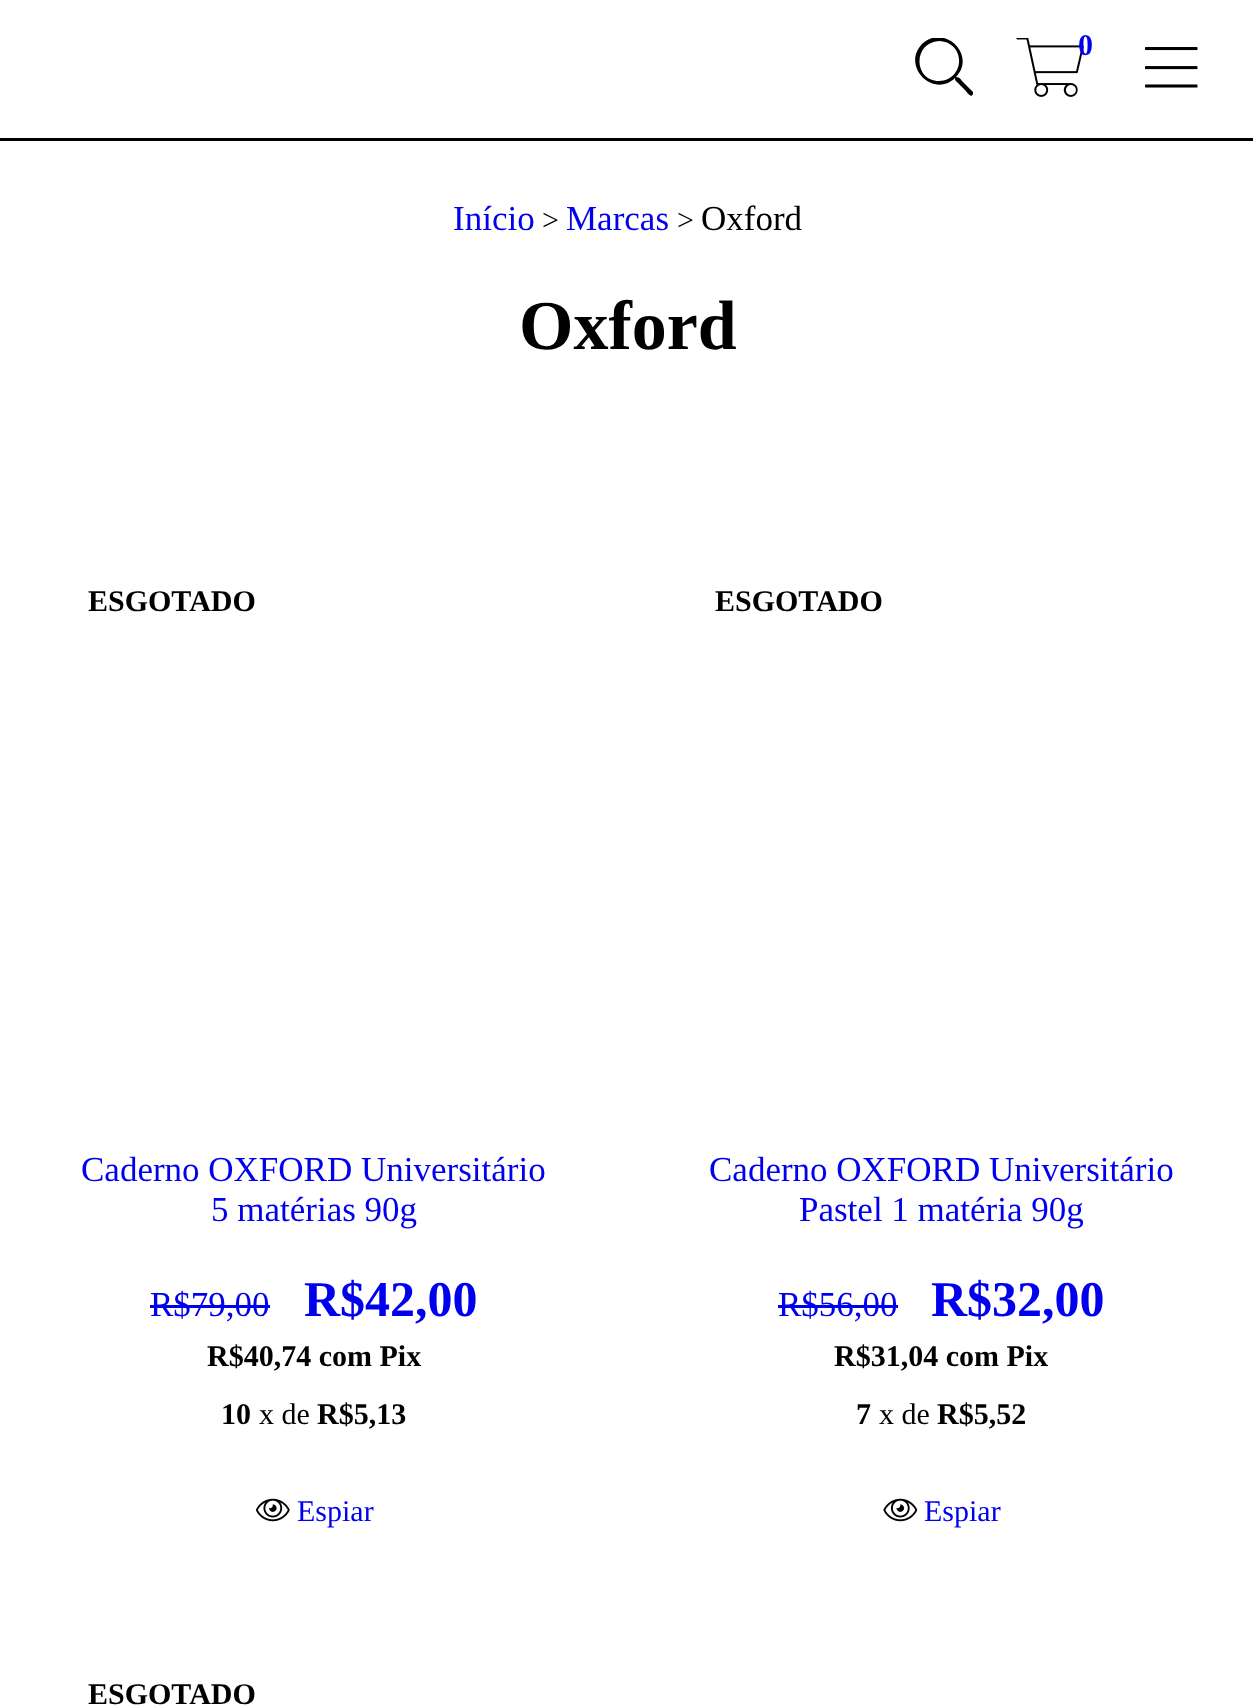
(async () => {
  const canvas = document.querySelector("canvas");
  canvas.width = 1253;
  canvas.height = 1706;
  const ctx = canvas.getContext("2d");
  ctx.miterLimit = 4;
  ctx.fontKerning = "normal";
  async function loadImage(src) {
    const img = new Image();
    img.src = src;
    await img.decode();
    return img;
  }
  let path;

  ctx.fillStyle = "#ffffff";
  ctx.fillRect(0, 0, 1253, 1706);
  ctx.save();
  ctx.beginPath();
  ctx.rect(915, 38, 60, 60);
  ctx.clip();
  ctx.fillStyle = "#000000";
  path = new Path2D("M973 92L963 82C961 80 960 77 956 77C977 55 944 23 922 44C901 66 933 99 955 78C955 81 956 81 958 83L965 90C967 92 971 99 973 94ZM939 81C914 81 912 43 939 41C942 41 946 42 948 43C967 53 960 81 939 81Z");
  ctx.fill(path);
  ctx.restore();
  ctx.drawImage(await loadImage("img/1.png"), 1016, 38, 68, 59);
  ctx.drawImage(await loadImage("img/2.png"), 1145, 47, 53, 41);
  ctx.fillStyle = "#000000";
  ctx.fillRect(0, 138, 1253, 3);
  ctx.fillStyle = "#0000ee";
  ctx.fillRect(150, 1305, 120, 3);
  ctx.drawImage(await loadImage("img/3.png"), 256, 1498, 34, 24);
  ctx.fillRect(778, 1305, 120, 3);
  ctx.drawImage(await loadImage("img/4.png"), 883, 1498, 35, 24);
  ctx.font = "bold 30px Liberation Serif";
  ctx.fillText("0", 1078, 55);
  ctx.font = "35px Liberation Serif";
  ctx.fillText("Início", 453, 230);
  ctx.font = "30px Liberation Serif";
  ctx.fillStyle = "#000000";
  ctx.fillText(">", 542, 230);
  ctx.font = "35px Liberation Serif";
  ctx.fillStyle = "#0000ee";
  ctx.fillText("Marcas", 566, 230);
  ctx.font = "30px Liberation Serif";
  ctx.fillStyle = "#000000";
  ctx.fillText(">", 677, 230);
  ctx.font = "35px Liberation Serif";
  ctx.fillText("Oxford", 701, 230);
  ctx.font = "bold 70px Liberation Serif";
  ctx.fillText("Oxford", 519, 349);
  ctx.font = "bold 30px Liberation Serif";
  ctx.fillText("ESGOTADO", 88, 611);
  ctx.font = "35px Liberation Serif";
  ctx.fillStyle = "#0000ee";
  for (const [text, x, y] of [
    ["Caderno OXFORD Universitário", 81, 1181],
    ["5 matérias 90g", 211, 1221],
    ["R$79,00", 150, 1316],
  ]) {
    ctx.fillText(text, x, y);
  }
  ctx.font = "bold 50px Liberation Serif";
  ctx.fillText("R$42,00", 304, 1316);
  ctx.font = "bold 30px Liberation Serif";
  ctx.fillStyle = "#000000";
  ctx.fillText("R$40,74 com Pix", 207, 1366);
  ctx.fillText("10", 221, 1424);
  ctx.font = "30px Liberation Serif";
  ctx.fillText("x de", 259, 1424);
  ctx.font = "bold 30px Liberation Serif";
  ctx.fillText("R$5,13", 317, 1424);
  ctx.font = "30px Liberation Serif";
  ctx.fillStyle = "#0000ee";
  ctx.fillText("Espiar", 297, 1521);
  ctx.font = "bold 30px Liberation Serif";
  ctx.fillStyle = "#000000";
  ctx.fillText("ESGOTADO", 715, 611);
  ctx.font = "35px Liberation Serif";
  ctx.fillStyle = "#0000ee";
  for (const [text, x, y] of [
    ["Caderno OXFORD Universitário", 709, 1181],
    ["Pastel 1 matéria 90g", 799, 1221],
    ["R$56,00", 778, 1316],
  ]) {
    ctx.fillText(text, x, y);
  }
  ctx.font = "bold 50px Liberation Serif";
  ctx.fillText("R$32,00", 931, 1316);
  ctx.font = "bold 30px Liberation Serif";
  ctx.fillStyle = "#000000";
  ctx.fillText("R$31,04 com Pix", 834, 1366);
  ctx.fillText("7", 856, 1424);
  ctx.font = "30px Liberation Serif";
  ctx.fillText("x de", 879, 1424);
  ctx.font = "bold 30px Liberation Serif";
  ctx.fillText("R$5,52", 937, 1424);
  ctx.font = "30px Liberation Serif";
  ctx.fillStyle = "#0000ee";
  ctx.fillText("Espiar", 924, 1521);
  ctx.font = "bold 30px Liberation Serif";
  ctx.fillStyle = "#000000";
  ctx.fillText("ESGOTADO", 88, 1704);
})();
